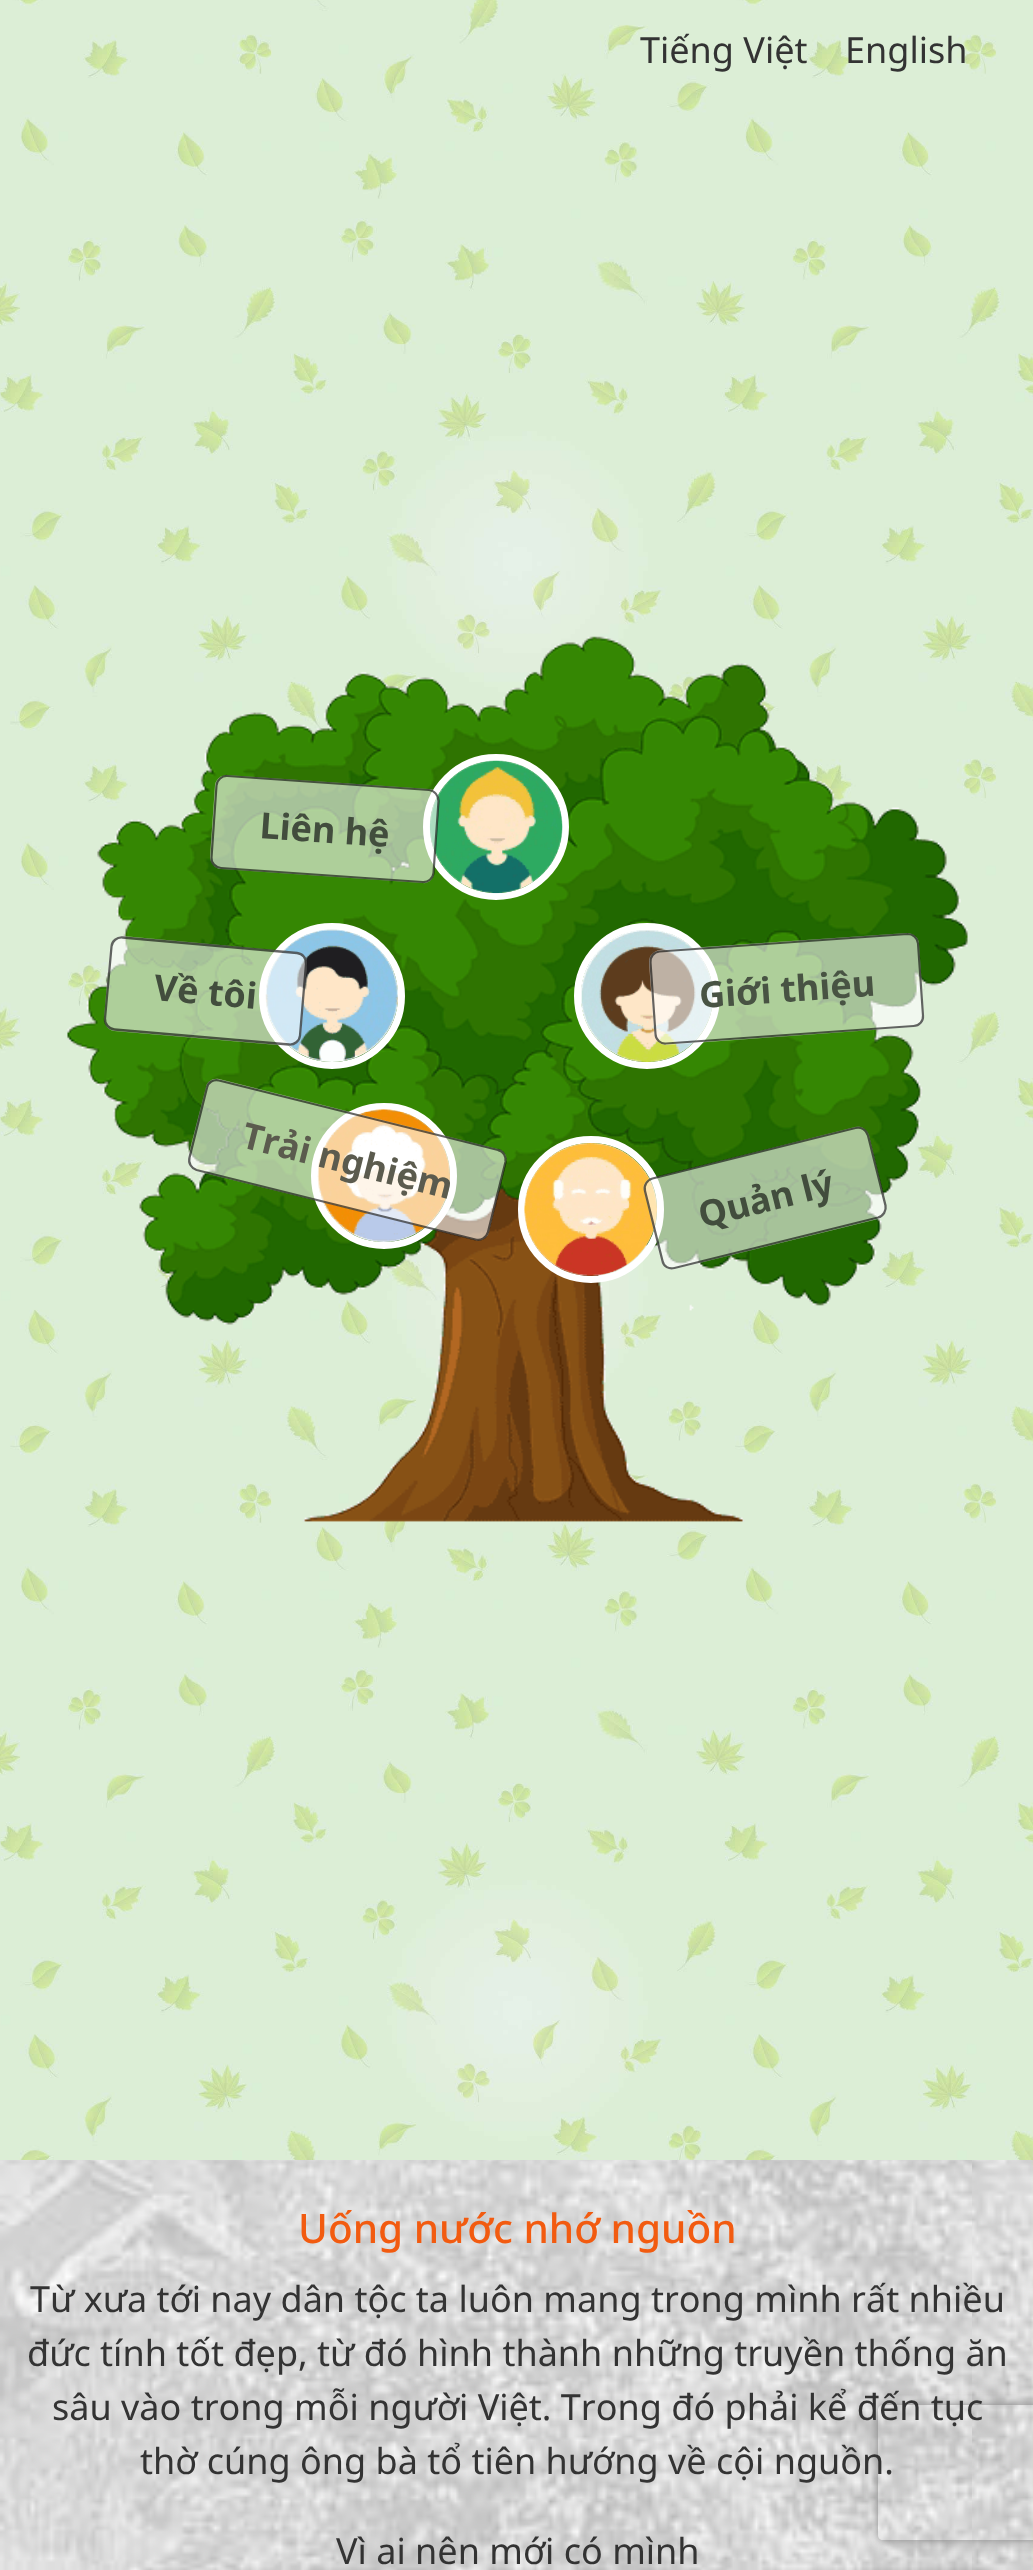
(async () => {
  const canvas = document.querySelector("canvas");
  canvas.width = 1033;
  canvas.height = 2570;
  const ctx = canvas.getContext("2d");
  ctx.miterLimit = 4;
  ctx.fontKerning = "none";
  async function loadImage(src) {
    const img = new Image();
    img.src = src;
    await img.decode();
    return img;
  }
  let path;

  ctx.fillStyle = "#ffffff";
  ctx.fillRect(0, 0, 1033, 2570);
  ctx.drawImage(await loadImage("img/1.png"), 0, 0, 1033, 2570);
  ctx.drawImage(await loadImage("img/2.png"), 67, 636, 901, 886);
  ctx.beginPath();
  ctx.arc(496, 827, 69.5, 0, Math.PI * 2);
  ctx.strokeStyle = "#ffffff";
  ctx.lineWidth = 7;
  ctx.stroke();
  ctx.drawImage(await loadImage("img/3.png"), 429, 760, 134, 134);
  ctx.fillStyle = "rgba(255, 255, 255, 0.6)";
  path = new Path2D("M227 775L429 789C435 789 440 795 439 801L434 873C434 879 429 884 422 883L221 869C215 869 210 863 210 857L215 785C216 779 221 775 227 775Z");
  ctx.fill(path);
  path = new Path2D("M227.5 776L429 790C434.5 790.5 438.5 795.5 438.5 801L433.5 873C433 878.5 428 882.5 422.5 882L221 868C215.5 867.5 211 863 211.5 857.5L216.5 785.5C217 780 222 775.5 227.5 776Z");
  ctx.strokeStyle = "rgba(0, 0, 0, 0.6)";
  ctx.lineWidth = 2.2;
  ctx.stroke(path);
  ctx.beginPath();
  ctx.arc(332, 996, 69.5, 0, Math.PI * 2);
  ctx.strokeStyle = "#ffffff";
  ctx.lineWidth = 7;
  ctx.stroke();
  ctx.drawImage(await loadImage("img/4.png"), 265, 929, 133, 133);
  path = new Path2D("M123 936L297 952C303 952 308 958 307 964L301 1036C300 1042 295 1046 289 1046L114 1031C108 1030 104 1025 104 1018L110 947C111 940 116 936 123 936Z");
  ctx.fill(path);
  path = new Path2D("M122.5 937.5L297 953C302.5 953.5 306.5 958 306 964L300 1035.5C299.5 1041 294.5 1045 289 1044.5L114.5 1029.5C109 1029 104.5 1024 105 1018.5L111.5 946.5C112 941 117 937 122.5 937.5Z");
  ctx.strokeStyle = "rgba(0, 0, 0, 0.6)";
  ctx.lineWidth = 2.3;
  ctx.stroke(path);
  ctx.beginPath();
  ctx.arc(647, 996, 69.5, 0, Math.PI * 2);
  ctx.strokeStyle = "#ffffff";
  ctx.lineWidth = 7;
  ctx.stroke();
  ctx.drawImage(await loadImage("img/5.png"), 581, 930, 132, 132);
  path = new Path2D("M660 950L907 933C913 933 919 937 919 944L924 1015C925 1022 920 1027 914 1027L666 1045C660 1045 655 1040 654 1034L649 962C649 956 653 951 660 950Z");
  ctx.fill(path);
  path = new Path2D("M659.5 951.5L907.5 934C913 934 917.5 938 918 943.5L923 1015.5C923.5 1021 919.5 1026 913.5 1026L666 1043.5C660.5 1044 655.5 1039.5 655.5 1034L650.5 962.5C650 956.5 654 952 659.5 951.5Z");
  ctx.strokeStyle = "rgba(0, 0, 0, 0.6)";
  ctx.lineWidth = 2.2;
  ctx.stroke(path);
  ctx.beginPath();
  ctx.arc(384, 1176, 69.5, 0, Math.PI * 2);
  ctx.strokeStyle = "#ffffff";
  ctx.lineWidth = 7;
  ctx.stroke();
  ctx.drawImage(await loadImage("img/6.png"), 317, 1109, 133, 133);
  path = new Path2D("M219 1079L498 1149C504 1150 508 1156 506 1162L489 1232C488 1238 481 1242 475 1240L196 1171C190 1169 187 1163 188 1157L206 1087C207 1081 213 1078 219 1079Z");
  ctx.fill(path);
  path = new Path2D("M219 1080.5L498 1150C503.5 1151 506.5 1156.5 505.5 1162L488 1232C486.5 1237.5 481 1241 475.5 1239.5L196.5 1170C191.5 1168.5 188 1163 189.5 1157.5L207 1087.5C208 1082.5 213.5 1079 219 1080.5Z");
  ctx.strokeStyle = "rgba(0, 0, 0, 0.6)";
  ctx.lineWidth = 2.3;
  ctx.stroke(path);
  ctx.beginPath();
  ctx.roundRect(521.5, 1139.5, 139, 140, 69.5);
  ctx.strokeStyle = "#ffffff";
  ctx.lineWidth = 7;
  ctx.stroke();
  ctx.drawImage(await loadImage("img/7.png"), 524, 1143, 133, 133);
  path = new Path2D("M652 1178L855 1127C861 1125 867 1129 869 1135L886 1205C888 1211 884 1217 878 1219L675 1269C669 1271 663 1267 661 1261L644 1191C642 1185 646 1179 652 1178Z");
  ctx.fill(path);
  path = new Path2D("M652.5 1178.5L855.5 1128C861 1126.5 866.5 1130 868 1135.5L885.5 1205.5C886.5 1210.5 883.5 1216 878 1217.5L674.5 1268C669 1269.5 663.5 1266.5 662.5 1261L645 1191C643.5 1185.5 647 1180 652.5 1178.5Z");
  ctx.strokeStyle = "rgba(0, 0, 0, 0.6)";
  ctx.lineWidth = 2.3;
  ctx.stroke(path);
  ctx.drawImage(await loadImage("img/8.png"), 0, 2160, 1033, 410);
  ctx.save();
  path = new Path2D("M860 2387H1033V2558H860ZM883 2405H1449C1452 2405 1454 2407 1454 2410V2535C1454 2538 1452 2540 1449 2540H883C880 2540 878 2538 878 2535V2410C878 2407 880 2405 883 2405Z");
  ctx.clip(path, "evenodd");
  ctx.fillStyle = "#808080";
  ctx.filter = "blur(5.5px)";
  ctx.beginPath();
  ctx.roundRect(878, 2405, 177, 135, 5);
  ctx.fill();
  ctx.filter = "none";
  ctx.restore();
  ctx.font = "36px Noto Sans";
  ctx.fillStyle = "#333333";
  ctx.fillText("Tiếng Việt", 640, 63);
  ctx.fillText("English", 845, 63);
  ctx.font = "bold 36px Noto Sans";
  ctx.fillStyle = "#424d3d";
  ctx.save();
  ctx.translate(259, 838);
  ctx.rotate(4 * Math.PI / 180);
  ctx.fillText("Liên hệ", 0, 0);
  ctx.restore();
  ctx.save();
  ctx.translate(153, 1000);
  ctx.rotate(5 * Math.PI / 180);
  ctx.fillText("Về tôi", 0, 0);
  ctx.restore();
  ctx.fillStyle = "#485343";
  ctx.save();
  ctx.translate(700, 1008);
  ctx.rotate(-4 * Math.PI / 180);
  ctx.fillText("Giới thiệu", 0, 0);
  ctx.restore();
  ctx.fillStyle = "#5b5b4e";
  ctx.save();
  ctx.translate(240, 1147);
  ctx.rotate(14 * Math.PI / 180);
  ctx.fillText("Trải nghiệm", 0, 0);
  ctx.restore();
  ctx.fillStyle = "#424d3d";
  ctx.save();
  ctx.translate(702, 1228);
  ctx.rotate(-14 * Math.PI / 180);
  ctx.fillText("Quản lý", 0, 0);
  ctx.restore();
  ctx.font = "500 40.5px Noto Sans";
  ctx.fillStyle = "#f25b10";
  ctx.fillText("Uống nước nhớ nguồn", 298, 2243);
  ctx.font = "36px Noto Sans";
  ctx.fillStyle = "#333333";
  for (const [text, x, y] of [
    ["Từ xưa tới nay dân tộc ta luôn mang trong mình rất nhiều", 30, 2312],
    ["đức tính tốt đẹp, từ đó hình thành những truyền thống ăn", 27, 2366],
    ["sâu vào trong mỗi người Việt. Trong đó phải kể đến tục", 52, 2420],
    ["thờ cúng ông bà tổ tiên hướng về cội nguồn.", 140, 2474],
    ["Vì ai nên mới có mình", 336, 2564],
  ]) {
    ctx.fillText(text, x, y);
  }
})();
